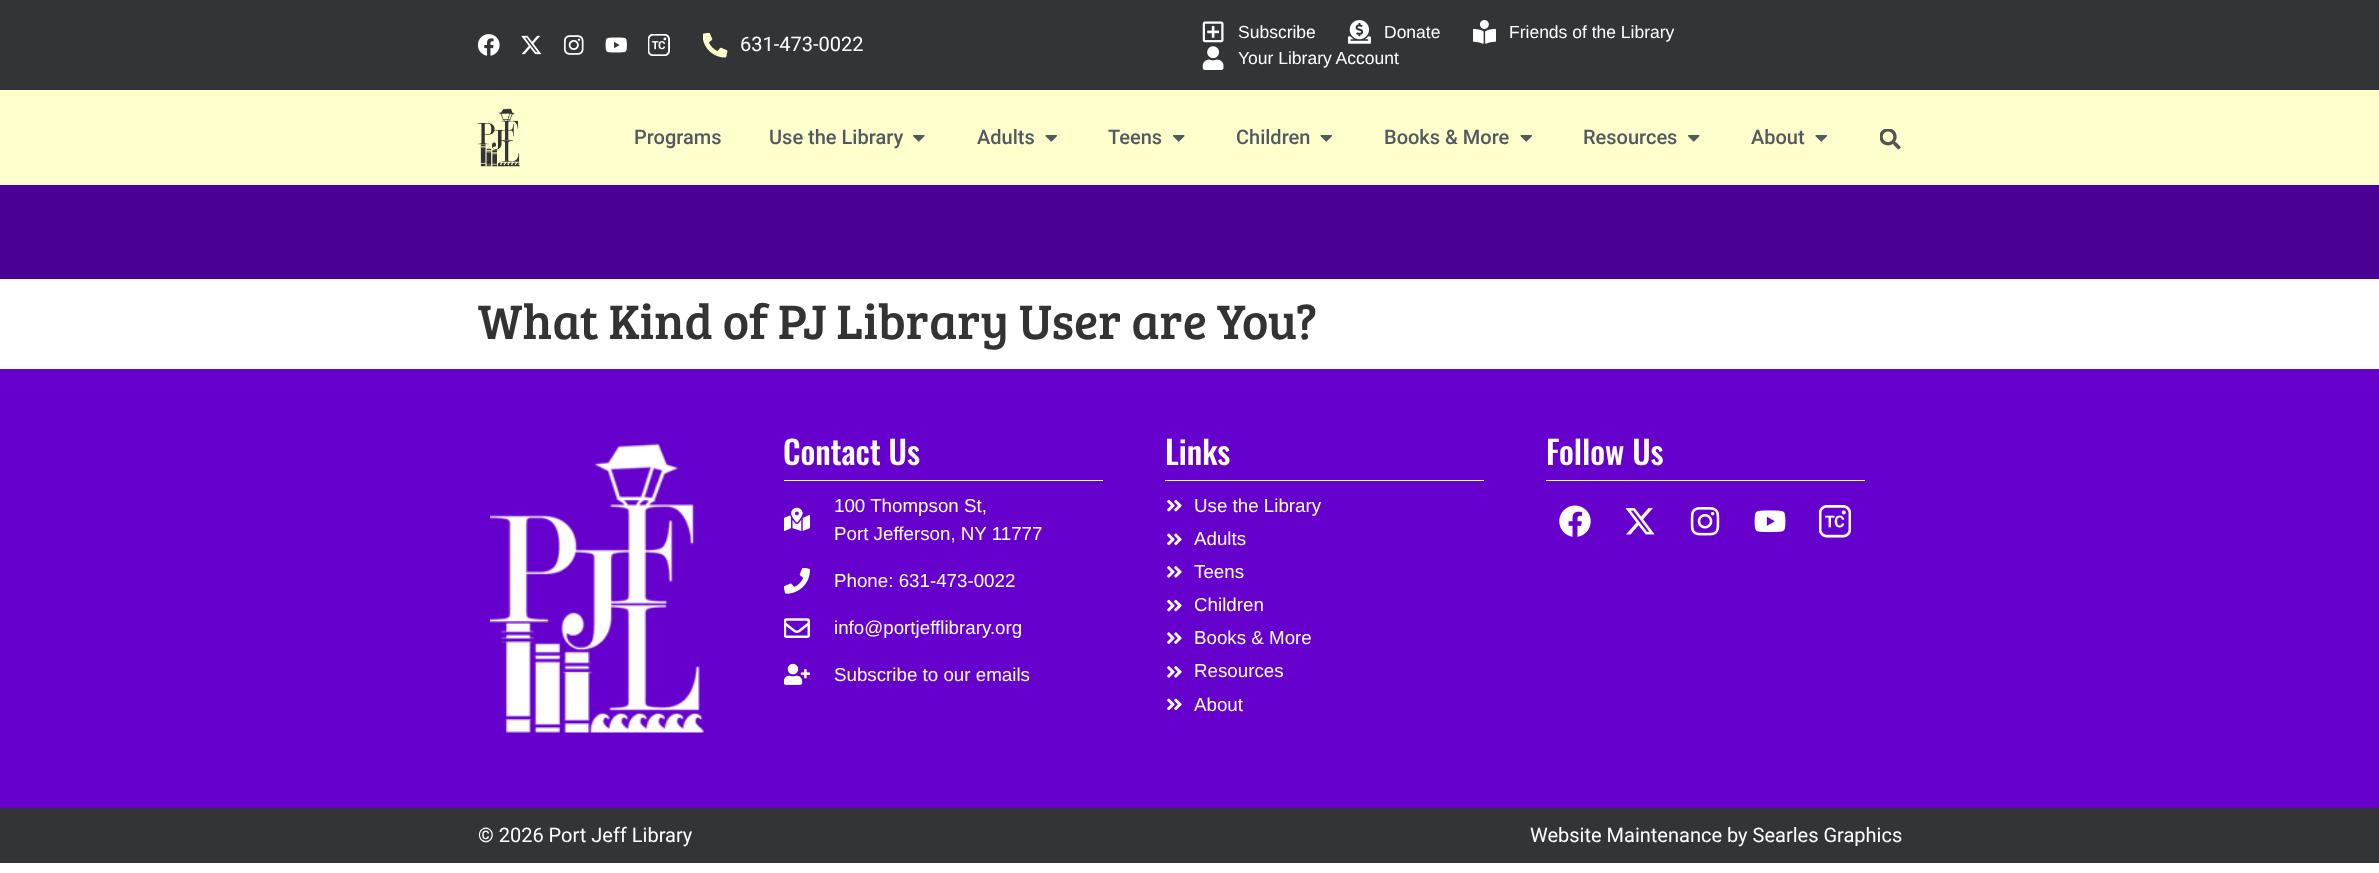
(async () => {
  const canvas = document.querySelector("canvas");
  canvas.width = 2379;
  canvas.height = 873;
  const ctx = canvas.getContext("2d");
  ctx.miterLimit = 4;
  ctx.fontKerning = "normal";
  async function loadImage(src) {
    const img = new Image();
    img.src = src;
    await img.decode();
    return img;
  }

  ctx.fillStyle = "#ffffff";
  ctx.fillRect(0, 0, 2379, 873);
  ctx.fillStyle = "#323436";
  ctx.fillRect(0, 0, 2379, 90);
  ctx.drawImage(await loadImage("img/1.png"), 478, 34, 22, 22);
  ctx.drawImage(await loadImage("img/2.png"), 521, 35, 21, 20);
  ctx.drawImage(await loadImage("img/3.png"), 563, 35, 21, 20);
  ctx.drawImage(await loadImage("img/4.png"), 605, 37, 22, 16);
  ctx.drawImage(await loadImage("img/5.png"), 648, 34, 22, 22);
  ctx.drawImage(await loadImage("img/6.png"), 703, 33, 25, 25);
  ctx.drawImage(await loadImage("img/7.png"), 1202, 21, 22, 22);
  ctx.drawImage(await loadImage("img/8.png"), 1348, 20, 23, 24);
  ctx.drawImage(await loadImage("img/9.png"), 1473, 20, 23, 24);
  ctx.drawImage(await loadImage("img/10.png"), 1202, 46, 22, 24);
  ctx.fillStyle = "#feffcc";
  ctx.fillRect(0, 90, 2379, 95);
  ctx.drawImage(await loadImage("img/11.png"), 477, 108, 43, 59);
  ctx.drawImage(await loadImage("img/12.png"), 913, 135, 12, 7);
  ctx.drawImage(await loadImage("img/13.png"), 1045, 135, 12, 7);
  ctx.drawImage(await loadImage("img/12.png"), 1173, 135, 12, 7);
  ctx.drawImage(await loadImage("img/13.png"), 1320, 135, 12, 7);
  ctx.drawImage(await loadImage("img/13.png"), 1520, 135, 12, 7);
  ctx.drawImage(await loadImage("img/12.png"), 1688, 135, 12, 7);
  ctx.drawImage(await loadImage("img/13.png"), 1815, 135, 12, 7);
  ctx.drawImage(await loadImage("img/14.png"), 1880, 129, 21, 21);
  ctx.fillStyle = "#4a0094";
  ctx.fillRect(0, 185, 2379, 94);
  ctx.fillStyle = "#6600cc";
  ctx.fillRect(0, 369, 2379, 439);
  ctx.drawImage(await loadImage("img/15.png"), 490, 443, 214, 290);
  ctx.fillStyle = "#ffffff";
  ctx.fillRect(784, 480, 319, 1);
  ctx.drawImage(await loadImage("img/16.png"), 784, 507, 26, 24);
  ctx.drawImage(await loadImage("img/17.png"), 784, 568, 26, 26);
  ctx.drawImage(await loadImage("img/18.png"), 784, 618, 26, 20);
  ctx.drawImage(await loadImage("img/19.png"), 784, 663, 26, 22);
  ctx.fillRect(1165, 480, 319, 1);
  ctx.drawImage(await loadImage("img/20.png"), 1167, 499, 15, 13);
  ctx.drawImage(await loadImage("img/21.png"), 1167, 533, 15, 13);
  ctx.drawImage(await loadImage("img/22.png"), 1167, 566, 15, 12);
  ctx.drawImage(await loadImage("img/20.png"), 1167, 599, 15, 13);
  ctx.drawImage(await loadImage("img/23.png"), 1167, 632, 15, 12);
  ctx.drawImage(await loadImage("img/22.png"), 1167, 666, 15, 12);
  ctx.drawImage(await loadImage("img/21.png"), 1167, 698, 15, 13);
  ctx.fillRect(1546, 480, 319, 1);
  ctx.drawImage(await loadImage("img/24.png"), 1559, 505, 32, 32);
  ctx.drawImage(await loadImage("img/25.png"), 1625, 508, 30, 27);
  ctx.drawImage(await loadImage("img/26.png"), 1690, 507, 30, 29);
  ctx.drawImage(await loadImage("img/27.png"), 1754, 510, 32, 23);
  ctx.drawImage(await loadImage("img/28.png"), 1819, 505, 32, 33);
  ctx.fillStyle = "#323436";
  ctx.fillRect(0, 808, 2379, 55);
  ctx.font = "20px Roboto";
  ctx.fillStyle = "#ffffff";
  ctx.fillText("631-473-0022", 740, 51);
  ctx.font = "17.5px Liberation Sans";
  for (const [text, x, y] of [
    ["Subscribe", 1238, 38],
    ["Donate", 1384, 38],
    ["Friends of the Library", 1509, 38],
    ["Your Library Account", 1238, 64],
  ]) {
    ctx.fillText(text, x, y);
  }
  ctx.font = "500 20px Roboto";
  ctx.fillStyle = "#54595f";
  for (const [text, x, y] of [
    ["Programs", 634, 144],
    ["Use the Library", 769, 144],
    ["Adults", 977, 144],
    ["Teens", 1108, 144],
    ["Children", 1236, 144],
    ["Books & More", 1384, 144],
    ["Resources", 1583, 144],
    ["About", 1751, 144],
  ]) {
    ctx.fillText(text, x, y);
  }
  ctx.font = "50px Bree Serif";
  ctx.fillStyle = "#333333";
  ctx.fillText("What Kind of PJ Library User are You?", 478, 339);
  ctx.font = "500 32.5px Oswald";
  ctx.fillStyle = "#ffffff";
  ctx.fillText("Contact Us", 783, 465);
  ctx.font = "18.75px Liberation Sans";
  for (const [text, x, y] of [
    ["100 Thompson St,", 834, 512],
    ["Port Jefferson, NY 11777", 834, 540],
    ["Phone: 631-473-0022", 834, 587],
    ["info@portjefflibrary.org", 834, 634],
    ["Subscribe to our emails", 834, 681],
  ]) {
    ctx.fillText(text, x, y);
  }
  ctx.font = "500 32.5px Oswald";
  ctx.fillText("Links", 1165, 465);
  ctx.font = "18.75px Liberation Sans";
  for (const [text, x, y] of [
    ["Use the Library", 1194, 512],
    ["Adults", 1194, 545],
    ["Teens", 1194, 578],
    ["Children", 1194, 611],
    ["Books & More", 1194, 644],
    ["Resources", 1194, 677],
    ["About", 1194, 711],
  ]) {
    ctx.fillText(text, x, y);
  }
  ctx.font = "500 32.5px Oswald";
  ctx.fillText("Follow Us", 1546, 465);
  ctx.font = "20px Roboto";
  ctx.fillText("© 2026 Port Jeff Library", 478, 842);
  ctx.fillText("Website Maintenance by Searles Graphics", 1530, 842);
})();
